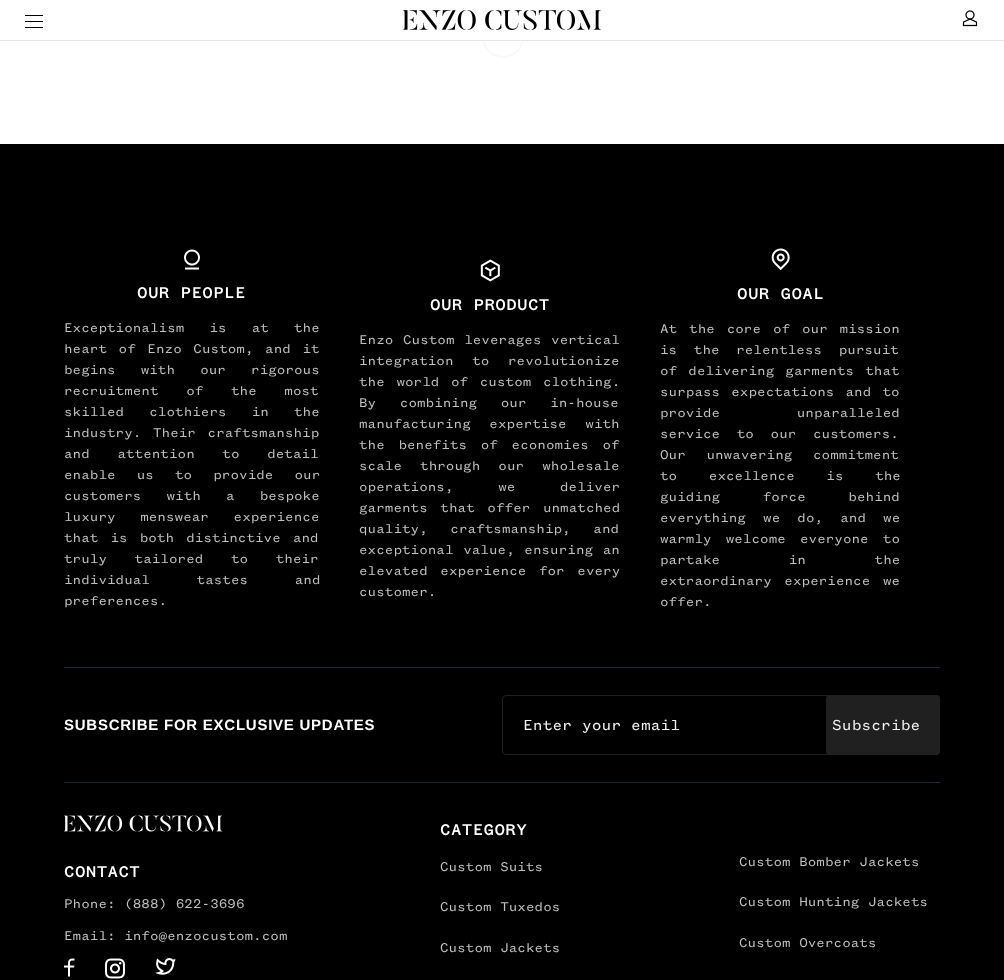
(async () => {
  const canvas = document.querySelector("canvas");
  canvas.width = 1004;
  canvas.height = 980;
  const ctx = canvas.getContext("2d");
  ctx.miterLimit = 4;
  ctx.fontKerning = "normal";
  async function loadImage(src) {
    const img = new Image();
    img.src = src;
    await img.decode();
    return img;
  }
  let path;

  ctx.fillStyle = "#ffffff";
  ctx.fillRect(0, 0, 1004, 980);
  path = new Path2D("M517 23C521 26.5 523 31.5 523 37C523 61 488 64.5 483.5 41C482 34.5 484 27.5 489 23");
  ctx.strokeStyle = "#f7f9fa";
  ctx.lineWidth = 2;
  ctx.stroke(path);
  for (const [x, y, w, h, color] of [
    [482, 22, 42, 18, "#ffffff"],
    [0, 40, 1004, 1, "#e5e5e5"],
    [25, 15, 18, 1, "#000000"],
    [25, 21, 18, 1, "#000000"],
    [25, 27, 18, 1, "#000000"],
  ]) {
    ctx.fillStyle = color;
    ctx.fillRect(x, y, w, h);
  }
  ctx.drawImage(await loadImage("img/1.png"), 403, 10, 198, 20);
  ctx.drawImage(await loadImage("img/2.png"), 962, 10, 16, 17);
  ctx.fillRect(0, 144, 1004, 836);
  ctx.fillStyle = "#1d2939";
  ctx.fillRect(64, 667, 876, 1);
  ctx.drawImage(await loadImage("img/3.png"), 184, 249, 16, 21);
  ctx.drawImage(await loadImage("img/4.png"), 480, 259, 20, 23);
  ctx.drawImage(await loadImage("img/5.png"), 771, 248, 19, 23);
  ctx.fillRect(64, 782, 876, 1);
  ctx.beginPath();
  ctx.roundRect(502.5, 695.5, 437, 59, 3.5);
  ctx.strokeStyle = "#202020";
  ctx.lineWidth = 1;
  ctx.stroke();
  ctx.fillStyle = "#202020";
  ctx.beginPath();
  ctx.roundRect(826, 695, 114, 60, 4);
  ctx.fill();
  ctx.drawImage(await loadImage("img/6.png"), 64, 815, 159, 17);
  ctx.drawImage(await loadImage("img/7.png"), 64, 958, 11, 19);
  ctx.drawImage(await loadImage("img/8.png"), 105, 958, 20, 21);
  ctx.drawImage(await loadImage("img/9.png"), 155, 958, 21, 17);
  ctx.letterSpacing = "0.75px";
  ctx.font = "bold 16.5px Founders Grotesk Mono";
  ctx.fillStyle = "#ffffff";
  ctx.fillText("OUR PEOPLE", 137, 298);
  ctx.letterSpacing = "0px";
  ctx.wordSpacing = "16.5px";
  ctx.font = "14px Founders Grotesk Mono";
  ctx.fillStyle = "#c0c0c0";
  ctx.fillText("Exceptionalism is at the", 64, 332);
  ctx.wordSpacing = "3px";
  ctx.fillText("heart of Enzo Custom, and it", 64, 353);
  ctx.wordSpacing = "16.5px";
  ctx.fillText("begins with our rigorous", 64, 374);
  ctx.wordSpacing = "19px";
  ctx.fillText("recruitment of the most", 64, 395);
  ctx.wordSpacing = "16.5px";
  ctx.fillText("skilled clothiers in the", 64, 416);
  ctx.wordSpacing = "3px";
  ctx.fillText("industry. Their craftsmanship", 64, 437);
  ctx.wordSpacing = "19px";
  ctx.fillText("and attention to detail", 64, 458);
  ctx.wordSpacing = "12.5px";
  ctx.fillText("enable us to provide our", 64, 479);
  ctx.wordSpacing = "16.5px";
  ctx.fillText("customers with a bespoke", 64, 500);
  ctx.wordSpacing = "16px";
  ctx.fillText("luxury menswear experience", 64, 521);
  ctx.wordSpacing = "3.5px";
  ctx.fillText("that is both distinctive and", 64, 542);
  ctx.wordSpacing = "19px";
  ctx.fillText("truly tailored to their", 64, 563);
  ctx.wordSpacing = "38px";
  ctx.fillText("individual tastes and", 64, 584);
  ctx.wordSpacing = "0px";
  ctx.fillText("preferences.", 64, 605);
  ctx.letterSpacing = "0.75px";
  ctx.font = "bold 16.5px Founders Grotesk Mono";
  ctx.fillStyle = "#ffffff";
  ctx.fillText("OUR PRODUCT", 430, 310);
  ctx.letterSpacing = "0px";
  ctx.wordSpacing = "1px";
  ctx.font = "14px Founders Grotesk Mono";
  ctx.fillStyle = "#c0c0c0";
  ctx.fillText("Enzo Custom leverages vertical", 359, 344);
  ctx.wordSpacing = "10px";
  ctx.fillText("integration to revolutionize", 359, 365);
  ctx.wordSpacing = "3px";
  ctx.fillText("the world of custom clothing.", 359, 386);
  ctx.wordSpacing = "15px";
  ctx.fillText("By combining our in-house", 359, 407);
  ctx.wordSpacing = "10px";
  ctx.fillText("manufacturing expertise with", 359, 428);
  ctx.wordSpacing = "5px";
  ctx.fillText("the benefits of economies of", 359, 449);
  ctx.wordSpacing = "9.5px";
  ctx.fillText("scale through our wholesale", 359, 470);
  ctx.wordSpacing = "36px";
  ctx.fillText("operations, we deliver", 359, 491);
  ctx.wordSpacing = "4px";
  ctx.fillText("garments that offer unmatched", 359, 512);
  ctx.wordSpacing = "14px";
  ctx.fillText("quality, craftsmanship, and", 359, 533);
  ctx.wordSpacing = "1px";
  ctx.fillText("exceptional value, ensuring an", 359, 554);
  ctx.wordSpacing = "4px";
  ctx.fillText("elevated experience for every", 359, 575);
  ctx.wordSpacing = "0px";
  ctx.fillText("customer.", 359, 596);
  ctx.letterSpacing = "0.75px";
  ctx.font = "bold 16.5px Founders Grotesk Mono";
  ctx.fillStyle = "#ffffff";
  ctx.fillText("OUR GOAL", 737, 299);
  ctx.letterSpacing = "0px";
  ctx.wordSpacing = "3.25px";
  ctx.font = "14px Founders Grotesk Mono";
  ctx.fillStyle = "#c0c0c0";
  ctx.fillText("At the core of our mission", 660, 333);
  ctx.wordSpacing = "8px";
  ctx.fillText("is the relentless pursuit", 660, 354);
  ctx.wordSpacing = "2.5px";
  ctx.fillText("of delivering garments that", 660, 375);
  ctx.fillText("surpass expectations and to", 660, 396);
  ctx.wordSpacing = "68px";
  ctx.fillText("provide unparalleled", 660, 417);
  ctx.wordSpacing = "8px";
  ctx.fillText("service to our customers.", 660, 438);
  ctx.wordSpacing = "12px";
  ctx.fillText("Our unwavering commitment", 660, 459);
  ctx.wordSpacing = "23px";
  ctx.fillText("to excellence is the", 660, 480);
  ctx.wordSpacing = "34px";
  ctx.fillText("guiding force behind", 660, 501);
  ctx.wordSpacing = "8.5px";
  ctx.fillText("everything we do, and we", 660, 522);
  ctx.wordSpacing = "5.5px";
  ctx.fillText("warmly welcome everyone to", 660, 543);
  ctx.wordSpacing = "60px";
  ctx.fillText("partake in the", 660, 564);
  ctx.wordSpacing = "4px";
  ctx.fillText("extraordinary experience we", 660, 585);
  ctx.wordSpacing = "0px";
  ctx.fillText("offer.", 660, 606);
  ctx.letterSpacing = "0.75px";
  ctx.font = "bold 15px Liberation Sans";
  ctx.fillStyle = "#ffffff";
  ctx.fillText("SUBSCRIBE FOR EXCLUSIVE UPDATES", 64, 730);
  ctx.letterSpacing = "0px";
  ctx.font = "16px Founders Grotesk Mono";
  ctx.fillStyle = "#f4f4f4";
  ctx.fillText("Enter your email", 523, 730);
  ctx.fillText("Subscribe", 832, 730);
  ctx.letterSpacing = "0.75px";
  ctx.font = "bold 16.5px Founders Grotesk Mono";
  ctx.fillStyle = "#ffffff";
  ctx.fillText("CONTACT", 64, 877);
  ctx.letterSpacing = "0px";
  ctx.font = "14px Founders Grotesk Mono";
  ctx.fillStyle = "#c0c0c0";
  ctx.fillText("Phone: (888) 622-3696", 64, 908);
  ctx.fillText("Email: info@enzocustom.com", 64, 940);
  ctx.letterSpacing = "0.75px";
  ctx.font = "bold 16.5px Founders Grotesk Mono";
  ctx.fillStyle = "#ffffff";
  ctx.fillText("CATEGORY", 440, 835);
  ctx.letterSpacing = "0px";
  ctx.font = "14px Founders Grotesk Mono";
  ctx.fillStyle = "#c0c0c0";
  for (const [text, x, y] of [
    ["Custom Suits", 440, 871],
    ["Custom Tuxedos", 440, 911],
    ["Custom Jackets", 440, 952],
    ["Custom Bomber Jackets", 739, 866],
    ["Custom Hunting Jackets", 739, 906],
    ["Custom Overcoats", 739, 947],
  ]) {
    ctx.fillText(text, x, y);
  }
})();
